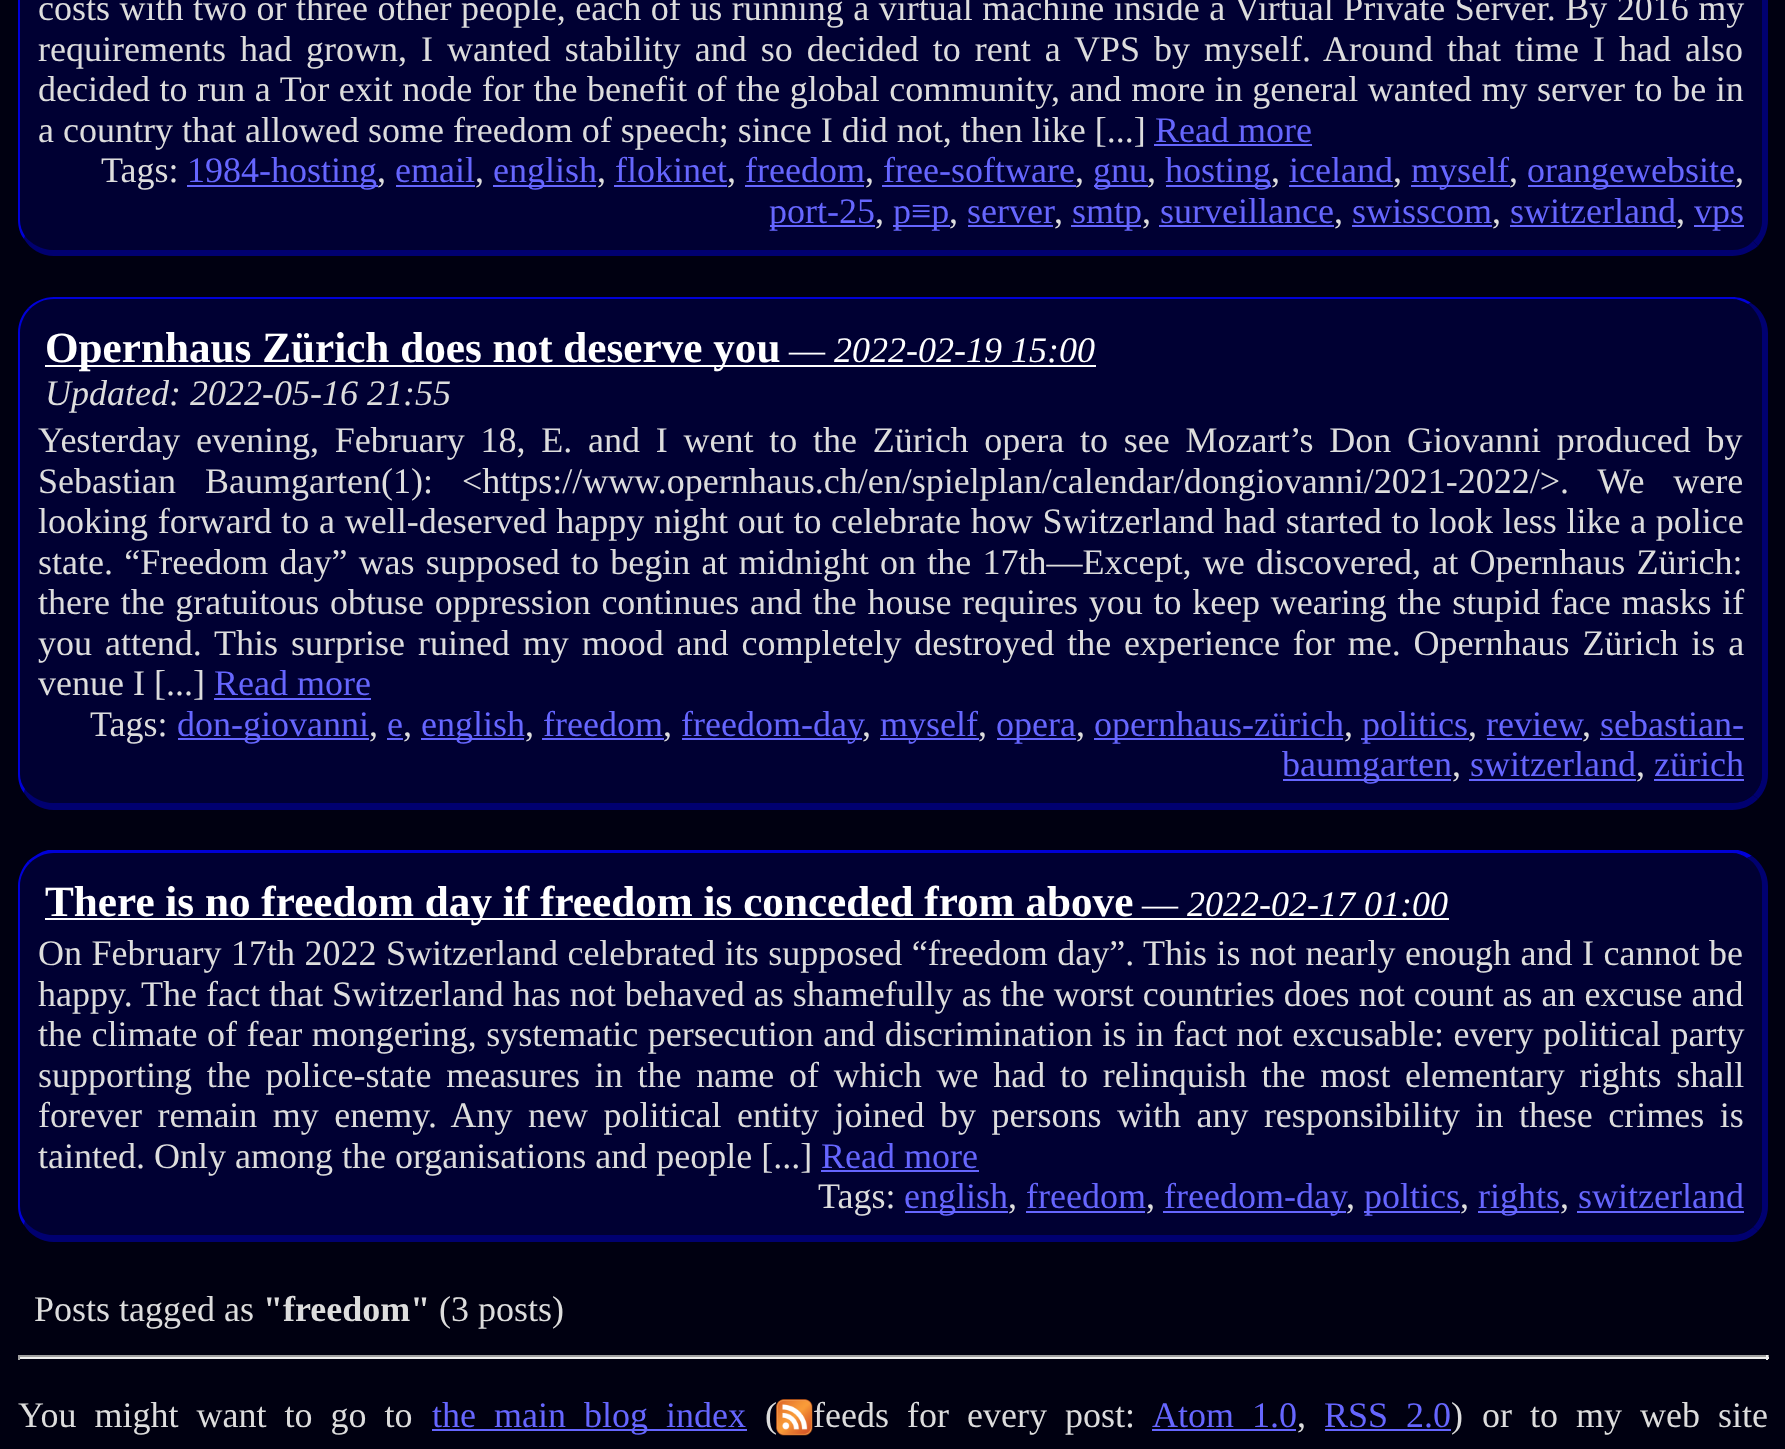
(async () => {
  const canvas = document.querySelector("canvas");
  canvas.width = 1785;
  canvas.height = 1449;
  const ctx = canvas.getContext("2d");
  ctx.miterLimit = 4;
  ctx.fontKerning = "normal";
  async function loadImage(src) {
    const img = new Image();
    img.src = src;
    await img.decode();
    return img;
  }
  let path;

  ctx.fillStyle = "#000011";
  ctx.fillRect(0, 0, 1785, 1449);
  ctx.fillStyle = "#000033";
  path = new Path2D("M54-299H1732C1749-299 1762-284 1762-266V220C1762 237 1749 250 1732 250H54C35 250 20 237 20 220V-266C20-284 35-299 54-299Z");
  ctx.fill(path);
  ctx.fillStyle = "#000070";
  path = new Path2D("M1752-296C1762-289 1768-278 1768-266V220C1768 230 1764 239 1758 246L1753 241C1759 236 1762 228 1762 220V-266C1762-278 1756-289 1747-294Z");
  ctx.fill(path);
  path = new Path2D("M1758 246C1751 252 1742 256 1732 256H54C41 256 30 249 24 239L25 236C31 244 42 250 54 250H1732C1740 250 1748 247 1753 241Z");
  ctx.fill(path);
  ctx.fillStyle = "#0000d9";
  path = new Path2D("M18-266V220C18 227 20 234 24 239L25 236C22 231 20 226 20 220V-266C20-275 24-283 30-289L28-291C22-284 18-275 18-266Z");
  ctx.fill(path);
  for (const [x, y, w, h, color] of [
    [1154, 144, 158, 2, "#6666ff"],
    [187, 185, 191, 2, "#6666ff"],
    [396, 185, 79, 2, "#6666ff"],
    [493, 185, 103, 2, "#6666ff"],
    [614, 185, 113, 2, "#6666ff"],
    [745, 185, 119, 2, "#6666ff"],
    [882, 185, 194, 2, "#6666ff"],
    [1094, 185, 54, 2, "#6666ff"],
    [1166, 185, 105, 2, "#6666ff"],
    [1289, 185, 104, 2, "#6666ff"],
    [1411, 185, 99, 2, "#6666ff"],
    [1528, 185, 207, 2, "#6666ff"],
    [770, 225, 105, 2, "#6666ff"],
    [893, 225, 57, 2, "#6666ff"],
    [968, 225, 85, 2, "#6666ff"],
    [1071, 225, 70, 2, "#6666ff"],
    [1159, 225, 175, 2, "#6666ff"],
    [1352, 225, 140, 2, "#6666ff"],
    [1510, 225, 166, 2, "#6666ff"],
    [1694, 225, 50, 2, "#6666ff"],
  ]) {
    ctx.fillStyle = color;
    ctx.fillRect(x, y, w, h);
  }
  ctx.fillStyle = "#000033";
  path = new Path2D("M54 299H1732C1749 299 1762 314 1762 333V774C1762 790 1749 803 1732 803H54C35 803 20 790 20 774V333C20 314 35 299 54 299Z");
  ctx.fill(path);
  ctx.fillStyle = "#0000d9";
  path = new Path2D("M54 297C44 297 35 301 28 308L30 309C36 303 44 299 54 299H1732C1738 299 1743 301 1748 304L1751 303C1746 299 1739 297 1732 297Z");
  ctx.fill(path);
  ctx.fillStyle = "#000070";
  path = new Path2D("M1751 303C1761 309 1768 320 1768 333V774C1768 784 1764 793 1758 799L1753 795C1759 789 1762 782 1762 774V333C1762 321 1756 310 1748 304Z");
  ctx.fill(path);
  path = new Path2D("M54 810H1732C1742 810 1751 806 1758 799L1753 795C1748 800 1740 803 1732 803H54C42 803 31 797 25 789L24 793C30 803 41 810 54 810Z");
  ctx.fill(path);
  ctx.fillStyle = "#0000d9";
  path = new Path2D("M18 333V774C18 781 20 788 24 793L25 789C22 785 20 780 20 774V333C20 324 24 315 30 309L28 308C22 314 18 323 18 333Z");
  ctx.fill(path);
  for (const [x, y, w, h, color] of [
    [45, 365, 1051, 2, "#ffffff"],
    [214, 698, 157, 2, "#6666ff"],
    [178, 738, 191, 2, "#6666ff"],
    [387, 738, 16, 2, "#6666ff"],
    [421, 738, 103, 2, "#6666ff"],
    [542, 738, 122, 2, "#6666ff"],
    [682, 738, 180, 2, "#6666ff"],
    [880, 738, 99, 2, "#6666ff"],
    [997, 738, 79, 2, "#6666ff"],
    [1094, 738, 249, 2, "#6666ff"],
    [1361, 738, 108, 2, "#6666ff"],
    [1487, 738, 95, 2, "#6666ff"],
    [1600, 738, 144, 2, "#6666ff"],
    [1283, 779, 168, 2, "#6666ff"],
    [1469, 779, 167, 2, "#6666ff"],
    [1654, 779, 90, 2, "#6666ff"],
  ]) {
    ctx.fillStyle = color;
    ctx.fillRect(x, y, w, h);
  }
  ctx.fillStyle = "#000033";
  path = new Path2D("M54 853H1732C1749 853 1762 868 1762 886V1206C1762 1222 1749 1235 1732 1235H54C35 1235 20 1222 20 1206V886C20 868 35 853 54 853Z");
  ctx.fill(path);
  ctx.fillStyle = "#0000d9";
  path = new Path2D("M54 853C45 853 36 857 30 863L28 861C34 856 40 852 48 850H1738C1743 851 1748 853 1752 856L1747 858C1743 855 1738 853 1732 853Z");
  ctx.fill(path);
  ctx.fillStyle = "#000070";
  path = new Path2D("M1752 856C1762 863 1768 874 1768 886V1206C1768 1216 1764 1225 1758 1231L1753 1227C1759 1221 1762 1214 1762 1206V886C1762 874 1756 863 1747 858Z");
  ctx.fill(path);
  path = new Path2D("M54 1242H1732C1742 1242 1751 1238 1758 1231L1753 1227C1748 1232 1740 1235 1732 1235H54C42 1235 31 1229 25 1221L24 1225C30 1235 41 1242 54 1242Z");
  ctx.fill(path);
  ctx.fillStyle = "#0000d9";
  path = new Path2D("M18 886V1206C18 1213 20 1220 24 1225L25 1221C22 1217 20 1212 20 1206V886C20 877 24 869 30 863L28 861C22 868 18 877 18 886Z");
  ctx.fill(path);
  for (const [x, y, w, h, color] of [
    [45, 918, 1404, 2, "#ffffff"],
    [821, 1170, 158, 2, "#6666ff"],
    [905, 1211, 103, 2, "#6666ff"],
    [1026, 1211, 119, 2, "#6666ff"],
    [1163, 1211, 183, 2, "#6666ff"],
    [1364, 1211, 96, 2, "#6666ff"],
    [1478, 1211, 81, 2, "#6666ff"],
    [1577, 1211, 167, 2, "#6666ff"],
    [18, 1355, 1751, 2, "#9f9f9f"],
    [1766, 1355, 2, 5, "#eeeeee"],
    [18, 1357, 1751, 2, "#eeeeee"],
    [18, 1355, 2, 5, "#9f9f9f"],
    [432, 1429, 315, 2, "#6666ff"],
  ]) {
    ctx.fillStyle = color;
    ctx.fillRect(x, y, w, h);
  }
  ctx.drawImage(await loadImage("img/1.png"), 776, 1399, 37, 37);
  ctx.fillRect(1152, 1429, 144, 2);
  ctx.fillRect(1325, 1429, 126, 2);
  ctx.wordSpacing = "0.5px";
  ctx.font = "36px Liberation Serif";
  ctx.fillStyle = "#dddddd";
  ctx.fillText("costs with two or three other people, each of us running a virtual machine inside a Virtual Private Server. By 2016 my", 38, 20);
  ctx.wordSpacing = "5px";
  ctx.fillText("requirements had grown, I wanted stability and so decided to rent a VPS by myself. Around that time I had also", 38, 61);
  ctx.wordSpacing = "0.6px";
  ctx.fillText("decided to run a Tor exit node for the benefit of the global community, and more in general wanted my server to be in", 38, 101);
  ctx.wordSpacing = "0px";
  ctx.fillText("a country that allowed some freedom of speech; since I did not, then like [...]", 38, 142);
  ctx.fillStyle = "#6666ff";
  ctx.fillText("Read more", 1155, 142);
  ctx.fillStyle = "#dddddd";
  ctx.fillText("Tags:", 101, 182);
  ctx.fillStyle = "#6666ff";
  ctx.fillText("1984-hosting", 187, 182);
  ctx.fillStyle = "#dddddd";
  ctx.fillText(",", 377, 182);
  ctx.fillStyle = "#6666ff";
  ctx.fillText("email", 395, 182);
  ctx.fillStyle = "#dddddd";
  ctx.fillText(",", 475, 182);
  ctx.fillStyle = "#6666ff";
  ctx.fillText("english", 493, 182);
  ctx.fillStyle = "#dddddd";
  ctx.fillText(",", 597, 182);
  ctx.fillStyle = "#6666ff";
  ctx.fillText("flokinet", 615, 182);
  ctx.fillStyle = "#dddddd";
  ctx.fillText(",", 727, 182);
  ctx.fillStyle = "#6666ff";
  ctx.fillText("freedom", 745, 182);
  ctx.fillStyle = "#dddddd";
  ctx.fillText(",", 865, 182);
  ctx.fillStyle = "#6666ff";
  ctx.fillText("free-software", 883, 182);
  ctx.fillStyle = "#dddddd";
  ctx.fillText(",", 1075, 182);
  ctx.fillStyle = "#6666ff";
  ctx.fillText("gnu", 1093, 182);
  ctx.fillStyle = "#dddddd";
  ctx.fillText(",", 1147, 182);
  ctx.fillStyle = "#6666ff";
  ctx.fillText("hosting", 1165, 182);
  ctx.fillStyle = "#dddddd";
  ctx.fillText(",", 1271, 182);
  ctx.fillStyle = "#6666ff";
  ctx.fillText("iceland", 1289, 182);
  ctx.fillStyle = "#dddddd";
  ctx.fillText(",", 1393, 182);
  ctx.fillStyle = "#6666ff";
  ctx.fillText("myself", 1411, 182);
  ctx.fillStyle = "#dddddd";
  ctx.fillText(",", 1509, 182);
  ctx.fillStyle = "#6666ff";
  ctx.fillText("orangewebsite", 1527, 182);
  ctx.fillStyle = "#dddddd";
  ctx.fillText(",", 1735, 182);
  ctx.fillStyle = "#6666ff";
  ctx.fillText("port-25", 769, 223);
  ctx.fillStyle = "#dddddd";
  ctx.fillText(",", 875, 223);
  ctx.fillStyle = "#6666ff";
  ctx.fillText("p≡p", 893, 223);
  ctx.fillStyle = "#dddddd";
  ctx.fillText(",", 949, 223);
  ctx.fillStyle = "#6666ff";
  ctx.fillText("server", 967, 223);
  ctx.fillStyle = "#dddddd";
  ctx.fillText(",", 1054, 223);
  ctx.fillStyle = "#6666ff";
  ctx.fillText("smtp", 1072, 223);
  ctx.fillStyle = "#dddddd";
  ctx.fillText(",", 1142, 223);
  ctx.fillStyle = "#6666ff";
  ctx.fillText("surveillance", 1160, 223);
  ctx.fillStyle = "#dddddd";
  ctx.fillText(",", 1334, 223);
  ctx.fillStyle = "#6666ff";
  ctx.fillText("swisscom", 1352, 223);
  ctx.fillStyle = "#dddddd";
  ctx.fillText(",", 1492, 223);
  ctx.fillStyle = "#6666ff";
  ctx.fillText("switzerland", 1510, 223);
  ctx.fillStyle = "#dddddd";
  ctx.fillText(",", 1676, 223);
  ctx.fillStyle = "#6666ff";
  ctx.fillText("vps", 1694, 223);
  ctx.font = "bold 43.2px Liberation Serif";
  ctx.fillStyle = "#ffffff";
  ctx.fillText("Opernhaus Zürich does not deserve you", 45, 362);
  ctx.font = "36px Liberation Serif";
  ctx.fillText("—", 789, 362);
  ctx.font = "italic 36px Liberation Serif";
  ctx.fillText("2022-02-19 15:00", 834, 362);
  ctx.fillStyle = "#dddddd";
  ctx.fillText("Updated: 2022-05-16 21:55", 45, 405);
  ctx.wordSpacing = "6.75px";
  ctx.font = "36px Liberation Serif";
  ctx.fillText("Yesterday evening, February 18, E. and I went to the Zürich opera to see Mozart’s Don Giovanni produced by", 38, 452);
  ctx.wordSpacing = "20px";
  ctx.fillText("Sebastian Baumgarten(1): <https://www.opernhaus.ch/en/spielplan/calendar/dongiovanni/2021-2022/>. We were", 38, 493);
  ctx.wordSpacing = "0.7px";
  ctx.fillText("looking forward to a well-deserved happy night out to celebrate how Switzerland had started to look less like a police", 38, 533);
  ctx.wordSpacing = "2.25px";
  ctx.fillText("state. “Freedom day” was supposed to begin at midnight on the 17th—Except, we discovered, at Opernhaus Zürich:", 38, 574);
  ctx.wordSpacing = "1.7px";
  ctx.fillText("there the gratuitous obtuse oppression continues and the house requires you to keep wearing the stupid face masks if", 38, 614);
  ctx.wordSpacing = "3.9px";
  ctx.fillText("you attend. This surprise ruined my mood and completely destroyed the experience for me. Opernhaus Zürich is a", 38, 655);
  ctx.wordSpacing = "0px";
  ctx.fillText("venue I [...]", 38, 695);
  ctx.fillStyle = "#6666ff";
  ctx.fillText("Read more", 214, 695);
  ctx.fillStyle = "#dddddd";
  ctx.fillText("Tags:", 90, 736);
  ctx.fillStyle = "#6666ff";
  ctx.fillText("don-giovanni", 177, 736);
  ctx.fillStyle = "#dddddd";
  ctx.fillText(",", 369, 736);
  ctx.fillStyle = "#6666ff";
  ctx.fillText("e", 387, 736);
  ctx.fillStyle = "#dddddd";
  ctx.fillText(",", 403, 736);
  ctx.fillStyle = "#6666ff";
  ctx.fillText("english", 421, 736);
  ctx.fillStyle = "#dddddd";
  ctx.fillText(",", 525, 736);
  ctx.fillStyle = "#6666ff";
  ctx.fillText("freedom", 543, 736);
  ctx.fillStyle = "#dddddd";
  ctx.fillText(",", 663, 736);
  ctx.fillStyle = "#6666ff";
  ctx.fillText("freedom-day", 681, 736);
  ctx.fillStyle = "#dddddd";
  ctx.fillText(",", 862, 736);
  ctx.fillStyle = "#6666ff";
  ctx.fillText("myself", 880, 736);
  ctx.fillStyle = "#dddddd";
  ctx.fillText(",", 978, 736);
  ctx.fillStyle = "#6666ff";
  ctx.fillText("opera", 996, 736);
  ctx.fillStyle = "#dddddd";
  ctx.fillText(",", 1076, 736);
  ctx.fillStyle = "#6666ff";
  ctx.fillText("opernhaus-zürich", 1094, 736);
  ctx.fillStyle = "#dddddd";
  ctx.fillText(",", 1344, 736);
  ctx.fillStyle = "#6666ff";
  ctx.fillText("politics", 1362, 736);
  ctx.fillStyle = "#dddddd";
  ctx.fillText(",", 1468, 736);
  ctx.fillStyle = "#6666ff";
  ctx.fillText("review", 1486, 736);
  ctx.fillStyle = "#dddddd";
  ctx.fillText(",", 1582, 736);
  ctx.fillStyle = "#6666ff";
  ctx.fillText("sebastian-", 1600, 736);
  ctx.fillText("baumgarten", 1282, 776);
  ctx.fillStyle = "#dddddd";
  ctx.fillText(",", 1452, 776);
  ctx.fillStyle = "#6666ff";
  ctx.fillText("switzerland", 1470, 776);
  ctx.fillStyle = "#dddddd";
  ctx.fillText(",", 1636, 776);
  ctx.fillStyle = "#6666ff";
  ctx.fillText("zürich", 1654, 776);
  ctx.font = "bold 43.2px Liberation Serif";
  ctx.fillStyle = "#ffffff";
  ctx.fillText("There is no freedom day if freedom is conceded from above", 45, 916);
  ctx.font = "36px Liberation Serif";
  ctx.fillText("—", 1142, 916);
  ctx.font = "italic 36px Liberation Serif";
  ctx.fillText("2022-02-17 01:00", 1187, 916);
  ctx.wordSpacing = "0.5px";
  ctx.font = "36px Liberation Serif";
  ctx.fillStyle = "#dddddd";
  ctx.fillText("On February 17th 2022 Switzerland celebrated its supposed “freedom day”. This is not nearly enough and I cannot be", 38, 965);
  ctx.wordSpacing = "0px";
  ctx.fillText("happy. The fact that Switzerland has not behaved as shamefully as the worst countries does not count as an excuse and", 38, 1006);
  ctx.wordSpacing = "0.5px";
  ctx.fillText("the climate of fear mongering, systematic persecution and discrimination is in fact not excusable: every political party", 38, 1046);
  ctx.wordSpacing = "5.75px";
  ctx.fillText("supporting the police-state measures in the name of which we had to relinquish the most elementary rights shall", 38, 1087);
  ctx.wordSpacing = "6.5px";
  ctx.fillText("forever remain my enemy. Any new political entity joined by persons with any responsibility in these crimes is", 38, 1127);
  ctx.wordSpacing = "0px";
  ctx.fillText("tainted. Only among the organisations and people [...]", 38, 1168);
  ctx.fillStyle = "#6666ff";
  ctx.fillText("Read more", 821, 1168);
  ctx.fillStyle = "#dddddd";
  ctx.fillText("Tags:", 818, 1208);
  ctx.fillStyle = "#6666ff";
  ctx.fillText("english", 904, 1208);
  ctx.fillStyle = "#dddddd";
  ctx.fillText(",", 1008, 1208);
  ctx.fillStyle = "#6666ff";
  ctx.fillText("freedom", 1026, 1208);
  ctx.fillStyle = "#dddddd";
  ctx.fillText(",", 1146, 1208);
  ctx.fillStyle = "#6666ff";
  ctx.fillText("freedom-day", 1164, 1208);
  ctx.fillStyle = "#dddddd";
  ctx.fillText(",", 1346, 1208);
  ctx.fillStyle = "#6666ff";
  ctx.fillText("poltics", 1364, 1208);
  ctx.fillStyle = "#dddddd";
  ctx.fillText(",", 1460, 1208);
  ctx.fillStyle = "#6666ff";
  ctx.fillText("rights", 1478, 1208);
  ctx.fillStyle = "#dddddd";
  ctx.fillText(",", 1560, 1208);
  ctx.fillStyle = "#6666ff";
  ctx.fillText("switzerland", 1578, 1208);
  ctx.fillStyle = "#dddddd";
  ctx.fillText("Posts tagged as", 34, 1321);
  ctx.font = "bold 36px Liberation Serif";
  ctx.fillText("\"freedom\"", 263, 1321);
  ctx.font = "36px Liberation Serif";
  ctx.fillText("(3 posts)", 439, 1321);
  ctx.wordSpacing = "9px";
  ctx.fillText("You might want to go to", 18, 1427);
  ctx.wordSpacing = "0px";
  ctx.fillStyle = "#6666ff";
  ctx.fillText("the", 432, 1427);
  ctx.wordSpacing = "9px";
  ctx.fillText("main blog index", 494, 1427);
  ctx.wordSpacing = "0px";
  ctx.fillStyle = "#dddddd";
  ctx.fillText("(", 765, 1427);
  ctx.wordSpacing = "9px";
  ctx.fillText("feeds for every post:", 813, 1427);
  ctx.fillStyle = "#6666ff";
  ctx.fillText("Atom 1.0", 1152, 1427);
  ctx.wordSpacing = "0px";
  ctx.fillStyle = "#dddddd";
  ctx.fillText(",", 1297, 1427);
  ctx.wordSpacing = "9px";
  ctx.fillStyle = "#6666ff";
  ctx.fillText("RSS 2.0", 1324, 1427);
  ctx.wordSpacing = "0px";
  ctx.fillStyle = "#dddddd";
  ctx.fillText(")", 1451, 1427);
  ctx.wordSpacing = "9px";
  ctx.fillText("or to my web site", 1482, 1427);
})();
